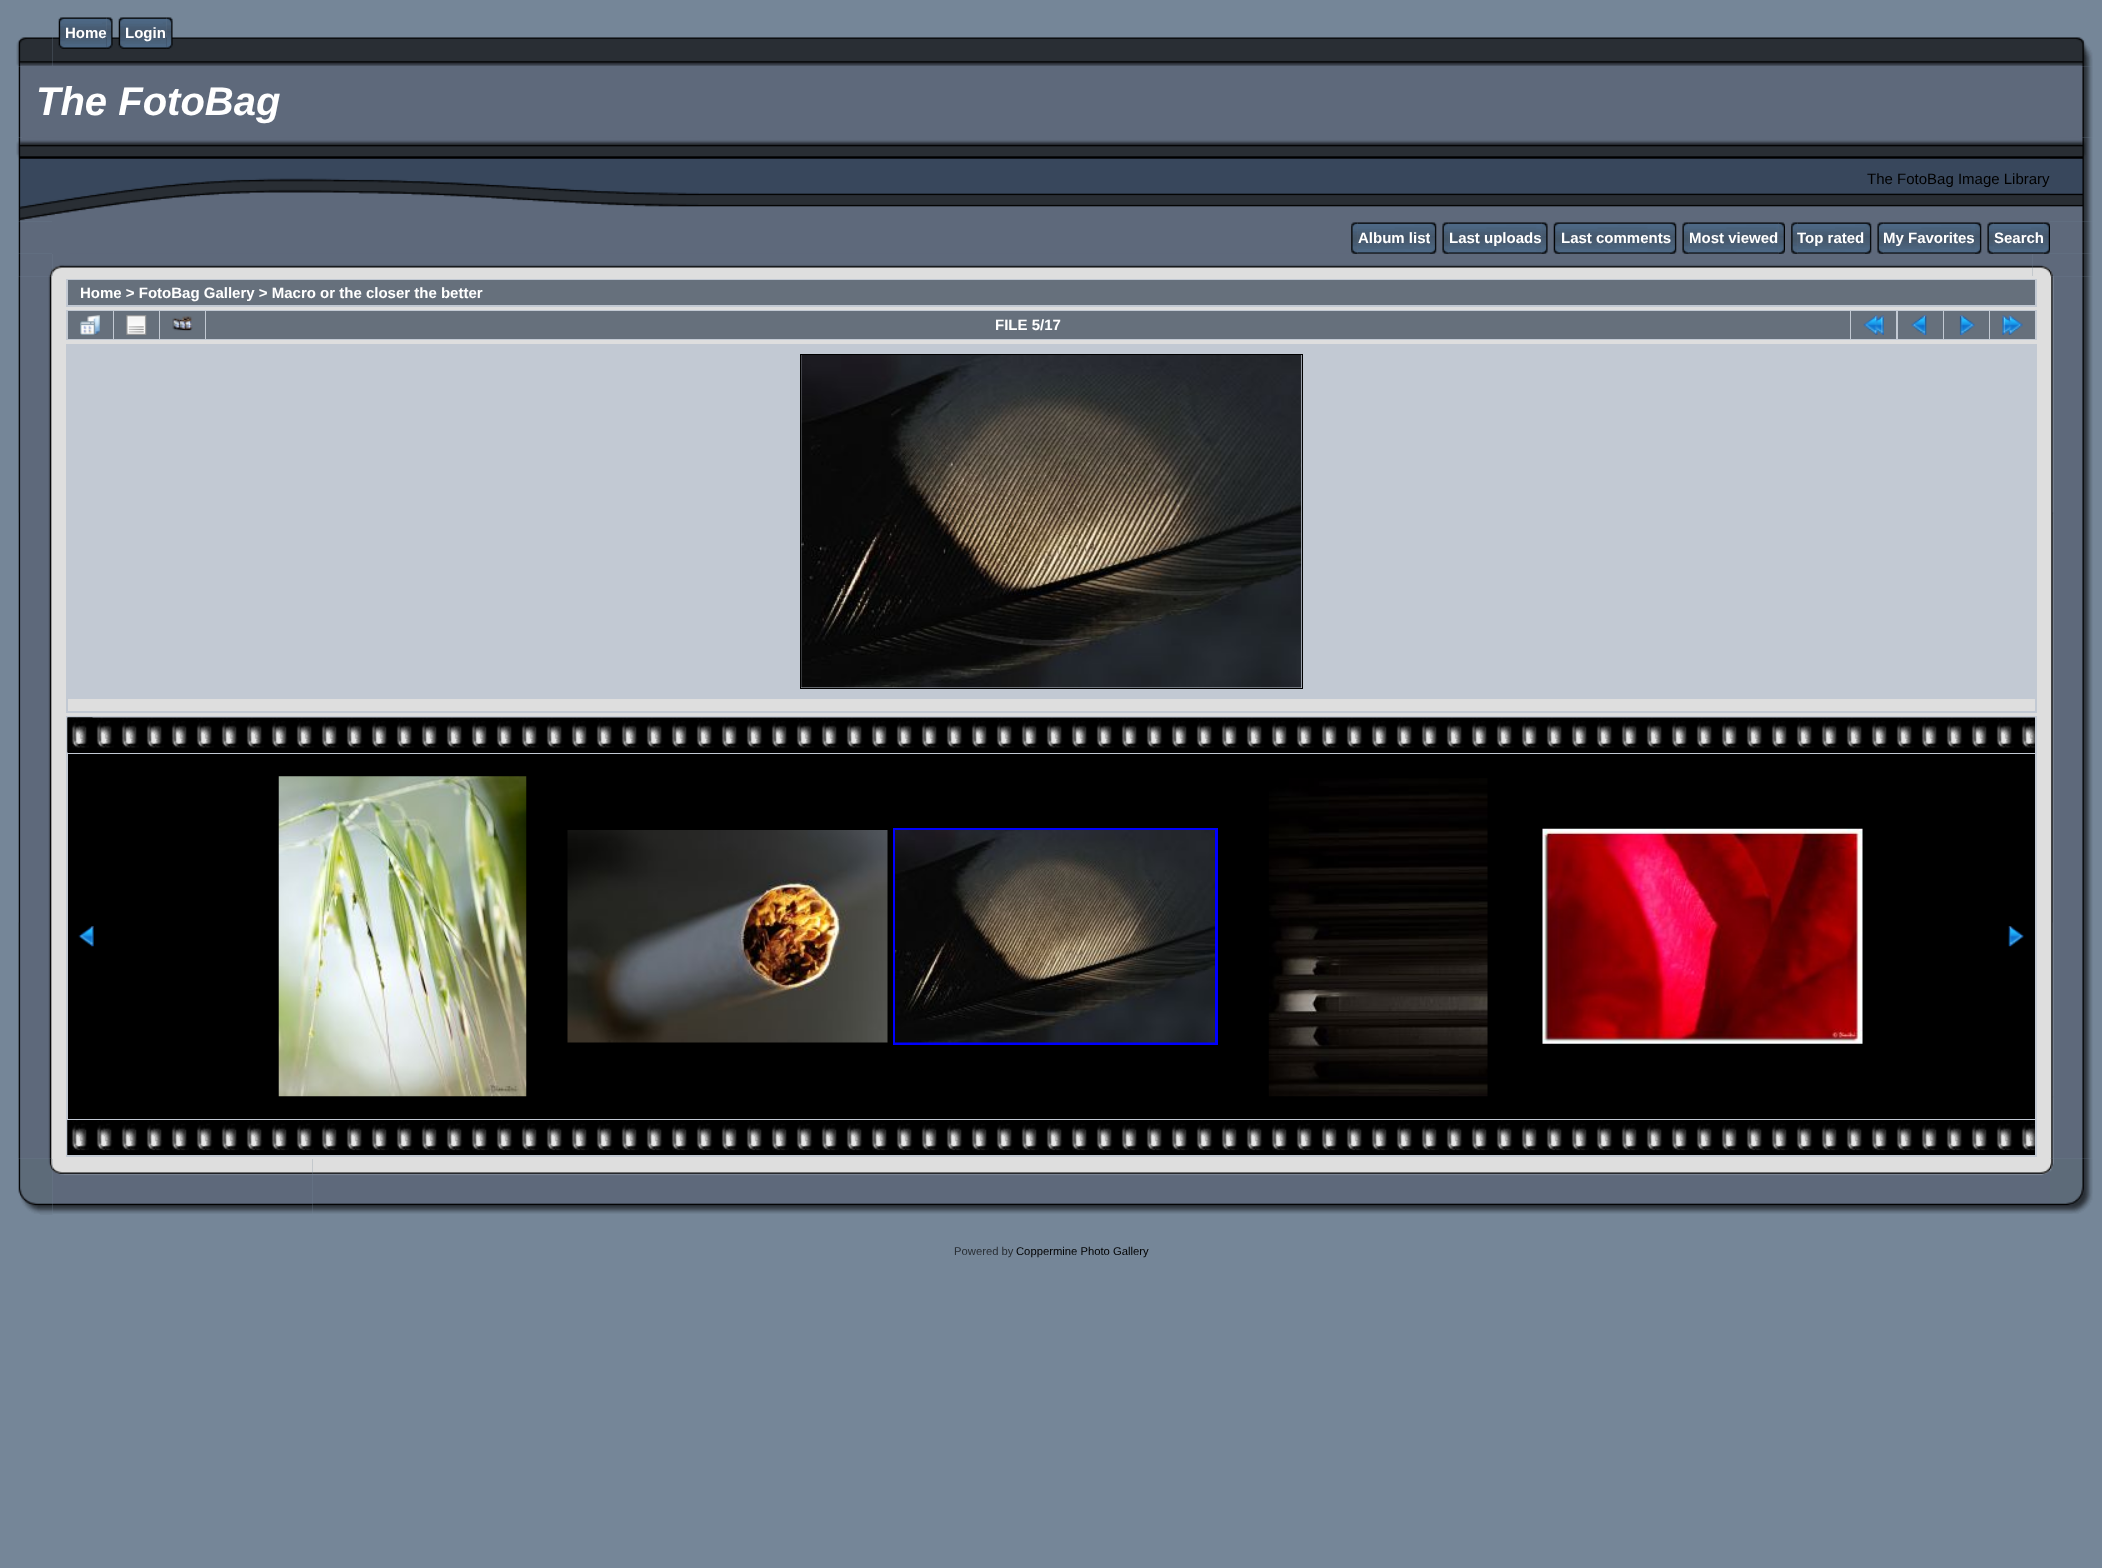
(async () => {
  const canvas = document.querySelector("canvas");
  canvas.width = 2102;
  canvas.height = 1568;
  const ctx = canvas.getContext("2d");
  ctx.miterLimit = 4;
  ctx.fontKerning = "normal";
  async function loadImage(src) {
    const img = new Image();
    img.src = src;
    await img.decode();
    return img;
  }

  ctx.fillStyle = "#758698";
  ctx.fillRect(0, 0, 2102, 1568);
  ctx.drawImage(await loadImage("img/8.png"), 16, 37, 37, 30);
  ctx.drawImage(await loadImage("img/1.png"), 52, 37, 1998, 29);
  ctx.drawImage(await loadImage("img/2.png"), 58, 17, 7, 32);
  ctx.drawImage(await loadImage("img/3.png"), 65, 17, 42, 32);
  ctx.drawImage(await loadImage("img/5.png"), 118, 17, 7, 32);
  ctx.drawImage(await loadImage("img/6.png"), 125, 17, 42, 32);
  ctx.drawImage(await loadImage("img/7.png"), 166, 17, 7, 32);
  ctx.drawImage(await loadImage("img/9.png"), 2050, 37, 43, 30);
  ctx.drawImage(await loadImage("img/10.png"), 18, 66, 4, 72);
  ctx.fillStyle = "#5e697b";
  ctx.fillRect(22, 66, 2061, 72);
  ctx.drawImage(await loadImage("img/11.png"), 2082, 66, 11, 72);
  ctx.drawImage(await loadImage("img/12.png"), 16, 137, 684, 85);
  ctx.drawImage(await loadImage("img/13.png"), 700, 138, 1350, 83);
  ctx.drawImage(await loadImage("img/14.png"), 2050, 137, 43, 85);
  ctx.drawImage(await loadImage("img/15.png"), 18, 221, 34, 33);
  ctx.fillRect(52, 221, 1998, 33);
  ctx.drawImage(await loadImage("img/17.png"), 1357, 222, 73, 32);
  ctx.drawImage(await loadImage("img/20.png"), 1448, 222, 94, 32);
  ctx.drawImage(await loadImage("img/23.png"), 1560, 222, 110, 32);
  ctx.drawImage(await loadImage("img/25.png"), 1688, 222, 91, 32);
  ctx.drawImage(await loadImage("img/27.png"), 1797, 222, 68, 32);
  ctx.drawImage(await loadImage("img/28.png"), 1883, 222, 92, 32);
  ctx.drawImage(await loadImage("img/31.png"), 1993, 222, 51, 32);
  ctx.drawImage(await loadImage("img/36.png"), 70, 253, 1963, 23);
  ctx.drawImage(await loadImage("img/16.png"), 1351, 222, 7, 32);
  ctx.drawImage(await loadImage("img/19.png"), 1442, 222, 7, 32);
  ctx.drawImage(await loadImage("img/22.png"), 1553, 222, 7, 32);
  ctx.drawImage(await loadImage("img/18.png"), 1670, 222, 7, 32);
  ctx.drawImage(await loadImage("img/24.png"), 1682, 222, 7, 32);
  ctx.drawImage(await loadImage("img/26.png"), 1778, 222, 7, 32);
  ctx.drawImage(await loadImage("img/16.png"), 1791, 222, 7, 32);
  ctx.drawImage(await loadImage("img/18.png"), 1865, 222, 7, 32);
  ctx.drawImage(await loadImage("img/19.png"), 1877, 222, 7, 32);
  ctx.drawImage(await loadImage("img/29.png"), 1975, 222, 7, 32);
  ctx.drawImage(await loadImage("img/30.png"), 1987, 222, 7, 32);
  ctx.drawImage(await loadImage("img/37.png"), 2032, 253, 18, 23);
  ctx.drawImage(await loadImage("img/32.png"), 2043, 222, 7, 32);
  ctx.drawImage(await loadImage("img/33.png"), 2050, 221, 43, 33);
  ctx.drawImage(await loadImage("img/34.png"), 18, 253, 35, 24);
  ctx.drawImage(await loadImage("img/35.png"), 52, 254, 18, 22);
  ctx.drawImage(await loadImage("img/38.png"), 2050, 253, 43, 24);
  ctx.drawImage(await loadImage("img/39.png"), 18, 276, 34, 883);
  ctx.drawImage(await loadImage("img/40.png"), 18, 512, 2, 411);
  for (const [x, y, w, h, color] of [
    [52, 276, 1998, 883, "#dedede"],
    [66, 279, 1971, 28, "#c2c9d3"],
    [68, 280, 1967, 25, "#66707c"],
    [66, 310, 1971, 30, "#c2c9d3"],
    [68, 311, 45, 28, "#66707c"],
  ]) {
    ctx.fillStyle = color;
    ctx.fillRect(x, y, w, h);
  }
  ctx.drawImage(await loadImage("img/41.png"), 80, 315, 20, 20);
  ctx.fillRect(114, 311, 45, 28);
  ctx.drawImage(await loadImage("img/42.png"), 126, 315, 21, 20);
  ctx.fillRect(160, 311, 45, 28);
  ctx.drawImage(await loadImage("img/43.png"), 172, 316, 21, 15);
  ctx.fillRect(206, 311, 1644, 28);
  ctx.fillRect(1851, 311, 45, 28);
  ctx.drawImage(await loadImage("img/44.png"), 1863, 315, 21, 20);
  ctx.fillRect(1898, 311, 45, 28);
  ctx.drawImage(await loadImage("img/45.png"), 1911, 315, 16, 20);
  ctx.fillRect(1944, 311, 45, 28);
  ctx.drawImage(await loadImage("img/46.png"), 1959, 315, 16, 20);
  ctx.fillRect(1990, 311, 45, 28);
  ctx.drawImage(await loadImage("img/47.png"), 2002, 315, 21, 20);
  ctx.fillStyle = "#c2c9d3";
  ctx.fillRect(66, 344, 1971, 369);
  ctx.strokeStyle = "#000000";
  ctx.strokeRect(800.5, 354.5, 502, 334);
  ctx.drawImage(await loadImage("img/48.png"), 801, 355, 501, 333);
  for (const [x, y, w, h, color] of [
    [68, 699, 1967, 12, "#dedede"],
    [66, 716, 1971, 441, "#c2c9d3"],
    [68, 752, 1967, 1, "#000000"],
  ]) {
    ctx.fillStyle = color;
    ctx.fillRect(x, y, w, h);
  }
  ctx.drawImage(await loadImage("img/49.png"), 67, 717, 1968, 36);
  ctx.drawImage(await loadImage("img/50.png"), 67, 717, 26, 36);
  ctx.fillRect(68, 754, 1967, 365);
  ctx.drawImage(await loadImage("img/51.png"), 78, 926, 16, 21);
  ctx.drawImage(await loadImage("img/52.png"), 278, 776, 249, 321);
  ctx.drawImage(await loadImage("img/53.png"), 567, 830, 321, 213);
  ctx.strokeStyle = "#0000ff";
  ctx.lineWidth = 3;
  ctx.strokeRect(894.5, 829.5, 322, 214);
  ctx.drawImage(await loadImage("img/54.png"), 895, 830, 320, 213);
  ctx.drawImage(await loadImage("img/55.png"), 1268, 778, 220, 319);
  ctx.drawImage(await loadImage("img/56.png"), 1542, 828, 321, 216);
  ctx.drawImage(await loadImage("img/57.png"), 2008, 926, 16, 21);
  ctx.drawImage(await loadImage("img/58.png"), 67, 1120, 1968, 35);
  ctx.drawImage(await loadImage("img/59.png"), 67, 1120, 7, 35);
  ctx.drawImage(await loadImage("img/60.png"), 2050, 276, 43, 883);
  ctx.drawImage(await loadImage("img/61.png"), 2052, 512, 2, 411);
  ctx.drawImage(await loadImage("img/62.png"), 18, 1158, 35, 57);
  ctx.drawImage(await loadImage("img/63.png"), 52, 1159, 261, 55);
  ctx.drawImage(await loadImage("img/64.png"), 312, 1159, 1478, 55);
  ctx.drawImage(await loadImage("img/65.png"), 1790, 1159, 260, 55);
  ctx.drawImage(await loadImage("img/66.png"), 2050, 1158, 43, 56);
  ctx.font = "bold 15px Liberation Sans";
  ctx.fillStyle = "#ffffff";
  ctx.fillText("Home", 65, 38);
  ctx.drawImage(await loadImage("img/4.png"), 106, 17, 7, 32);
  ctx.fillText("Login", 125, 38);
  ctx.font = "italic bold 40px Liberation Sans";
  ctx.fillText("The FotoBag", 36, 115);
  ctx.font = "15px Liberation Sans";
  ctx.fillStyle = "#000000";
  ctx.fillText("The FotoBag Image Library", 1867, 184);
  ctx.font = "bold 15px Liberation Sans";
  ctx.fillStyle = "#ffffff";
  ctx.fillText("Album list", 1358, 243);
  ctx.drawImage(await loadImage("img/18.png"), 1430, 222, 7, 32);
  ctx.fillText("Last uploads", 1449, 243);
  ctx.drawImage(await loadImage("img/21.png"), 1541, 222, 7, 32);
  for (const [text, x, y] of [
    ["Last comments", 1561, 243],
    ["Most viewed", 1689, 243],
    ["Top rated", 1797, 243],
    ["My Favorites", 1883, 243],
    ["Search", 1994, 243],
    ["Home > FotoBag Gallery > Macro or the closer the better", 80, 298],
    ["FILE 5/17", 995, 330],
  ]) {
    ctx.fillText(text, x, y);
  }
  ctx.font = "11.25px Liberation Sans";
  ctx.fillStyle = "#292e34";
  ctx.fillText("Powered by", 954, 1255);
  ctx.fillStyle = "#000000";
  ctx.fillText("Coppermine Photo Gallery", 1016, 1255);
})();
